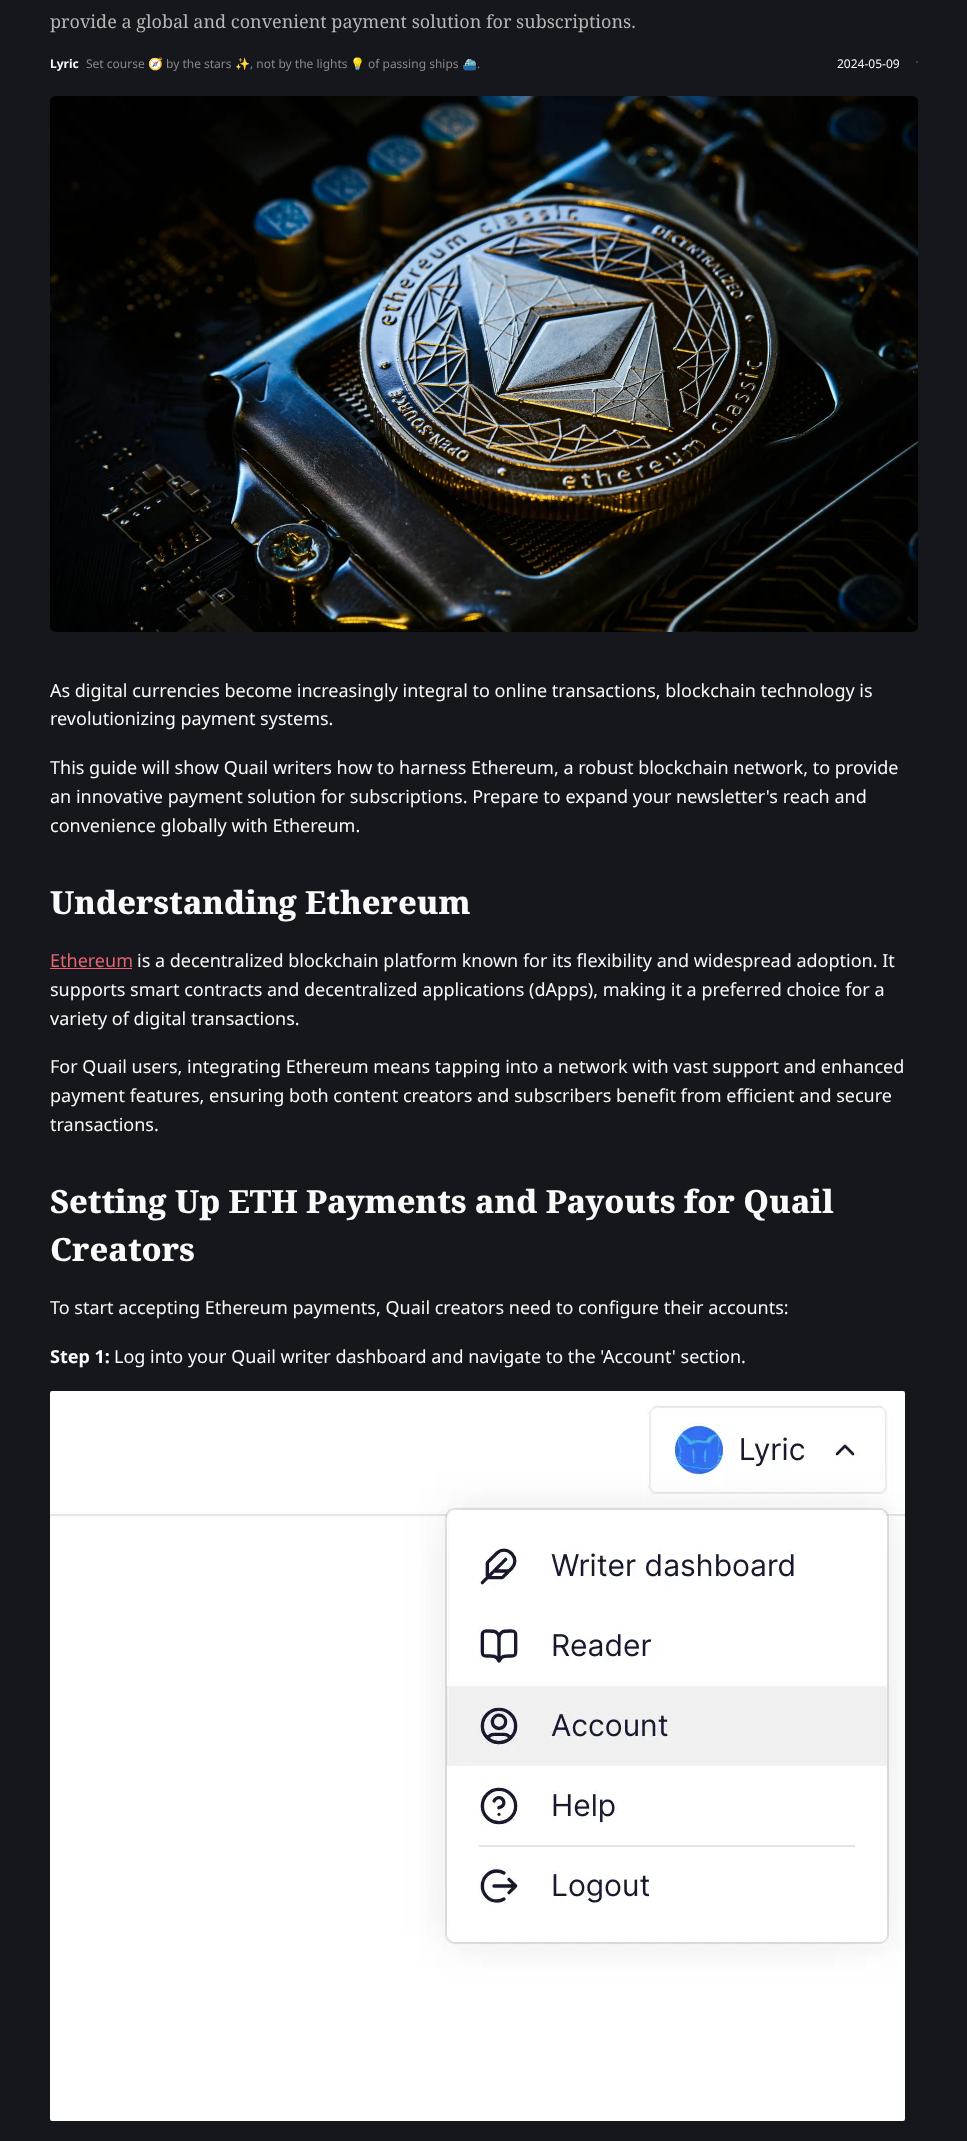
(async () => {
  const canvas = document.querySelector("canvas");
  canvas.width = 967;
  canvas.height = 2141;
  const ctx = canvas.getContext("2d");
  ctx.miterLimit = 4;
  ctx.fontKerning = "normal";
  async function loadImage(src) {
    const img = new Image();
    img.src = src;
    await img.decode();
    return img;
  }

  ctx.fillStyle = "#16161d";
  ctx.fillRect(0, 0, 967, 2141);
  ctx.fillStyle = "#4f4f54";
  ctx.beginPath();
  ctx.arc(917, 62, 1, 0, Math.PI * 2);
  ctx.fill();
  ctx.drawImage(await loadImage("img/1.png"), 50, 96, 868, 536);
  ctx.fillStyle = "#e66372";
  ctx.fillRect(50, 968, 82, 1);
  ctx.drawImage(await loadImage("img/2.png"), 50, 1391, 855, 730);
  ctx.font = "18px Noto Serif";
  ctx.fillStyle = "#b6b6b8";
  ctx.fillText("provide a global and convenient payment solution for subscriptions.", 50, 28);
  ctx.font = "bold 12px Noto Sans";
  ctx.fillStyle = "#fafafa";
  ctx.fillText("Lyric", 50, 68);
  ctx.font = "12px Noto Sans";
  ctx.fillStyle = "#88888c";
  ctx.fillText("Set course", 86, 68);
  ctx.font = "12px Noto Color Emoji";
  ctx.fillText("🧭", 148, 68);
  ctx.font = "12px Noto Sans";
  ctx.fillText("by the stars", 166, 68);
  ctx.font = "12px Noto Color Emoji";
  ctx.fillText("✨", 235, 68);
  ctx.font = "12px Noto Sans";
  ctx.fillText(", not by the lights", 250, 68);
  ctx.font = "12px Noto Color Emoji";
  ctx.fillText("💡", 350, 68);
  ctx.font = "12px Noto Sans";
  ctx.fillText("of passing ships", 368, 68);
  ctx.font = "12px Noto Color Emoji";
  ctx.fillText("⛴️", 462, 68);
  ctx.font = "12px Noto Sans";
  ctx.fillText(".", 477, 68);
  ctx.fillStyle = "#fafafa";
  ctx.fillText("2024-05-09", 837, 68);
  ctx.font = "18px Noto Sans";
  for (const [text, x, y] of [
    ["As digital currencies become increasingly integral to online transactions, blockchain technology is", 50, 697],
    ["revolutionizing payment systems.", 50, 725],
    ["This guide will show Quail writers how to harness Ethereum, a robust blockchain network, to provide", 50, 774],
    ["an innovative payment solution for subscriptions. Prepare to expand your newsletter's reach and", 50, 803],
    ["convenience globally with Ethereum.", 50, 832],
  ]) {
    ctx.fillText(text, x, y);
  }
  ctx.font = "800 32px Noto Serif";
  ctx.fillText("Understanding Ethereum", 50, 914);
  ctx.font = "18px Noto Sans";
  ctx.fillStyle = "#e66372";
  ctx.fillText("Ethereum", 50, 967);
  ctx.fillStyle = "#fafafa";
  for (const [text, x, y] of [
    ["is a decentralized blockchain platform known for its flexibility and widespread adoption. It", 137, 967],
    ["supports smart contracts and decentralized applications (dApps), making it a preferred choice for a", 50, 996],
    ["variety of digital transactions.", 50, 1025],
    ["For Quail users, integrating Ethereum means tapping into a network with vast support and enhanced", 50, 1073],
    ["payment features, ensuring both content creators and subscribers benefit from efficient and secure", 50, 1102],
    ["transactions.", 50, 1131],
  ]) {
    ctx.fillText(text, x, y);
  }
  ctx.font = "800 32px Noto Serif";
  ctx.fillText("Setting Up ETH Payments and Payouts for Quail", 50, 1213);
  ctx.fillText("Creators", 50, 1261);
  ctx.font = "18px Noto Sans";
  ctx.fillText("To start accepting Ethereum payments, Quail creators need to configure their accounts:", 50, 1314);
  ctx.font = "bold 18px Noto Sans";
  ctx.fillText("Step 1:", 50, 1363);
  ctx.font = "18px Noto Sans";
  ctx.fillText("Log into your Quail writer dashboard and navigate to the 'Account' section.", 114, 1363);
})();
